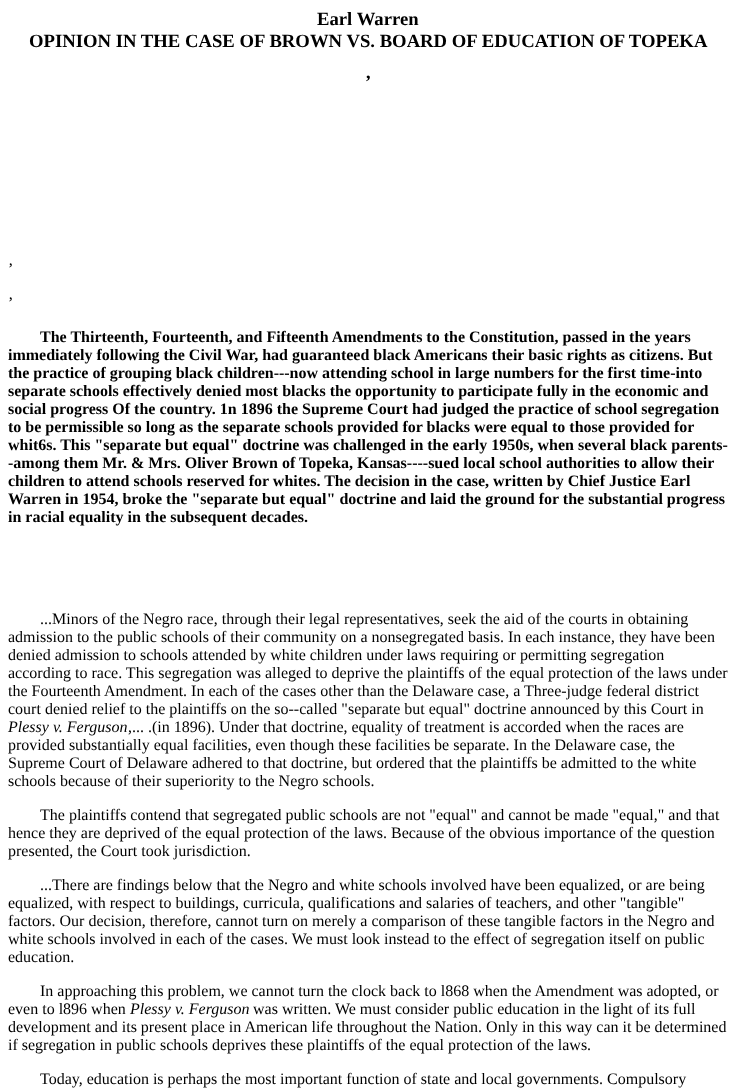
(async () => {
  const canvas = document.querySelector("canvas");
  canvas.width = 736;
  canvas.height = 1090;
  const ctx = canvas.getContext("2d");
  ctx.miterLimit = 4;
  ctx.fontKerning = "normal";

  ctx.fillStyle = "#ffffff";
  ctx.fillRect(0, 0, 736, 1090);
  ctx.font = "bold 18.7px Liberation Serif";
  ctx.fillStyle = "#000000";
  for (const [text, x, y] of [
    ["Earl Warren", 317, 25],
    ["OPINION IN THE CASE OF BROWN VS. BOARD OF EDUCATION OF TOPEKA", 29, 47],
    ["’", 365, 88],
  ]) {
    ctx.fillText(text, x, y);
  }
  ctx.font = "16px Liberation Serif";
  ctx.fillText("’", 8, 274);
  ctx.fillText("’", 8, 308);
  ctx.font = "bold 16px Liberation Serif";
  for (const [text, x, y] of [
    ["The Thirteenth, Fourteenth, and Fifteenth Amendments to the Constitution, passed in the years", 40, 342],
    ["immediately following the Civil War, had guaranteed black Americans their basic rights as citizens. But", 8, 360],
    ["the practice of grouping black children---now attending school in large numbers for the first time-into", 8, 378],
    ["separate schools effectively denied most blacks the opportunity to participate fully in the economic and", 8, 396],
    ["social progress Of the country. 1n 1896 the Supreme Court had judged the practice of school segregation", 8, 414],
    ["to be permissible so long as the separate schools provided for blacks were equal to those provided for", 8, 432],
    ["whit6s. This \"separate but equal\" doctrine was challenged in the early 1950s, when several black parents-", 8, 450],
    ["-among them Mr. & Mrs. Oliver Brown of Topeka, Kansas----sued local school authorities to allow their", 8, 468],
    ["children to attend schools reserved for whites. The decision in the case, written by Chief Justice Earl", 8, 486],
    ["Warren in 1954, broke the \"separate but equal\" doctrine and laid the ground for the substantial progress", 8, 504],
    ["in racial equality in the subsequent decades.", 8, 522],
  ]) {
    ctx.fillText(text, x, y);
  }
  ctx.font = "16px Liberation Serif";
  for (const [text, x, y] of [
    ["...Minors of the Negro race, through their legal representatives, seek the aid of the courts in obtaining", 40, 624],
    ["admission to the public schools of their community on a nonsegregated basis. In each instance, they have been", 8, 642],
    ["denied admission to schools attended by white children under laws requiring or permitting segregation", 8, 660],
    ["according to race. This segregation was alleged to deprive the plaintiffs of the equal protection of the laws under", 8, 678],
    ["the Fourteenth Amendment. In each of the cases other than the Delaware case, a Three-judge federal district", 8, 696],
    ["court denied relief to the plaintiffs on the so--called \"separate but equal\" doctrine announced by this Court in", 8, 714],
  ]) {
    ctx.fillText(text, x, y);
  }
  ctx.font = "italic 16px Liberation Serif";
  ctx.fillText("Plessy v. Ferguson", 8, 732);
  ctx.font = "16px Liberation Serif";
  for (const [text, x, y] of [
    [",... .(in 1896). Under that doctrine, equality of treatment is accorded when the races are", 128, 732],
    ["provided substantially equal facilities, even though these facilities be separate. In the Delaware case, the", 8, 750],
    ["Supreme Court of Delaware adhered to that doctrine, but ordered that the plaintiffs be admitted to the white", 8, 768],
    ["schools because of their superiority to the Negro schools.", 8, 786],
    ["The plaintiffs contend that segregated public schools are not \"equal\" and cannot be made \"equal,\" and that", 40, 820],
    ["hence they are deprived of the equal protection of the laws. Because of the obvious importance of the question", 8, 838],
    ["presented, the Court took jurisdiction.", 8, 856],
    ["...There are findings below that the Negro and white schools involved have been equalized, or are being", 40, 890],
    ["equalized, with respect to buildings, curricula, qualifications and salaries of teachers, and other \"tangible\"", 8, 908],
    ["factors. Our decision, therefore, cannot turn on merely a comparison of these tangible factors in the Negro and", 8, 926],
    ["white schools involved in each of the cases. We must look instead to the effect of segregation itself on public", 8, 944],
    ["education.", 8, 962],
    ["In approaching this problem, we cannot turn the clock back to l868 when the Amendment was adopted, or", 40, 996],
    ["even to l896 when", 8, 1014],
  ]) {
    ctx.fillText(text, x, y);
  }
  ctx.font = "italic 16px Liberation Serif";
  ctx.fillText("Plessy v. Ferguson", 130, 1014);
  ctx.font = "16px Liberation Serif";
  for (const [text, x, y] of [
    ["was written. We must consider public education in the light of its full", 253, 1014],
    ["development and its present place in American life throughout the Nation. Only in this way can it be determined", 8, 1032],
    ["if segregation in public schools deprives these plaintiffs of the equal protection of the laws.", 8, 1050],
    ["Today, education is perhaps the most important function of state and local governments. Compulsory", 40, 1084],
  ]) {
    ctx.fillText(text, x, y);
  }
})();
